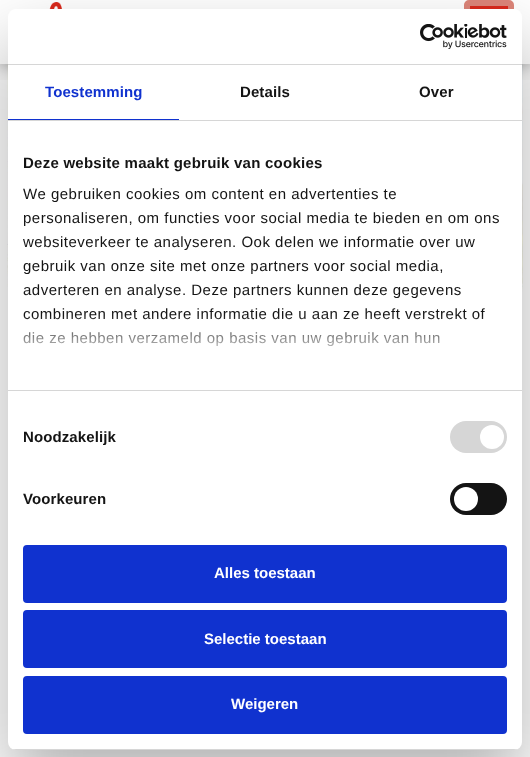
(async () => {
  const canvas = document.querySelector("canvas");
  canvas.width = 530;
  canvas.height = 757;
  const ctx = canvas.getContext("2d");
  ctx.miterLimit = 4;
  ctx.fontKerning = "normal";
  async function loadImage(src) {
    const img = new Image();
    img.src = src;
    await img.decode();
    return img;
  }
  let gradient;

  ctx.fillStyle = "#ffffff";
  ctx.fillRect(0, 0, 530, 757);
  ctx.drawImage(await loadImage("img/2.png"), 7, 64, 516, 293);
  ctx.save();
  ctx.beginPath();
  ctx.rect(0, 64, 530, 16);
  ctx.clip();
  ctx.fillStyle = "rgba(0, 0, 0, 0.5)";
  ctx.filter = "blur(10px)";
  ctx.beginPath();
  ctx.rect(0, -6, 530, 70);
  ctx.fill();
  ctx.filter = "none";
  ctx.restore();
  ctx.drawImage(await loadImage("img/1.png"), 49, 2, 13, 7);
  ctx.fillStyle = "#da291c";
  ctx.beginPath();
  ctx.roundRect(467, 3, 44, 44, 2);
  ctx.fill();
  ctx.strokeStyle = "#dd8579";
  ctx.lineWidth = 6;
  ctx.stroke();
  ctx.fillStyle = "rgba(0, 0, 0, 0.3)";
  ctx.filter = "blur(34px)";
  ctx.beginPath();
  ctx.roundRect(8, 41, 514, 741, 8);
  ctx.fill();
  ctx.filter = "none";
  ctx.fillStyle = "#ffffff";
  ctx.beginPath();
  ctx.roundRect(8, 9, 514, 741, 8);
  ctx.fill();
  ctx.fillStyle = "#d6d6d6";
  ctx.fillRect(8, 64, 514, 1);
  ctx.drawImage(await loadImage("img/3.png"), 420, 24, 87, 25);
  for (const [x, y, w, h, color] of [
    [8, 120, 514, 1, "#d6d6d6"],
    [8, 119, 171, 1, "#1032cf"],
    [8, 390, 514, 1, "#d6d6d6"],
  ]) {
    ctx.fillStyle = color;
    ctx.fillRect(x, y, w, h);
  }
  ctx.beginPath();
  ctx.roundRect(450, 421, 57, 32, 16);
  ctx.fill();
  ctx.fillStyle = "#ffffff";
  ctx.beginPath();
  ctx.arc(492, 437, 12, 0, Math.PI * 2);
  ctx.fill();
  ctx.fillStyle = "#141414";
  ctx.beginPath();
  ctx.roundRect(450, 483, 57, 32, 16);
  ctx.fill();
  ctx.fillStyle = "#ffffff";
  ctx.beginPath();
  ctx.arc(466, 499, 12, 0, Math.PI * 2);
  ctx.fill();
  ctx.save();
  ctx.beginPath();
  ctx.roundRect(8, 9, 514, 741, 8);
  ctx.clip();
  ctx.fillStyle = "#d6d6d6";
  ctx.fillRect(8, 749, 514, 1);
  ctx.restore();
  ctx.fillStyle = "#1032cf";
  ctx.beginPath();
  ctx.roundRect(24, 546, 482, 56, 3);
  ctx.fill();
  ctx.strokeStyle = "#1032cf";
  ctx.lineWidth = 2;
  ctx.stroke();
  ctx.beginPath();
  ctx.roundRect(24, 611, 482, 56, 3);
  ctx.fill();
  ctx.stroke();
  ctx.beginPath();
  ctx.roundRect(24, 677, 482, 56, 3);
  ctx.fill();
  ctx.stroke();
  ctx.letterSpacing = "0.1px";
  ctx.font = "bold 15px Liberation Sans";
  ctx.fillText("Toestemming", 45, 97);
  ctx.fillStyle = "#141414";
  ctx.fillText("Details", 240, 97);
  ctx.fillText("Over", 419, 97);
  ctx.letterSpacing = "0.25px";
  ctx.fillText("Deze website maakt gebruik van cookies", 23, 168);
  ctx.letterSpacing = "0.5px";
  ctx.font = "15px Liberation Sans";
  for (const [text, x, y] of [
    ["We gebruiken cookies om content en advertenties te", 23, 199],
    ["personaliseren, om functies voor social media te bieden en om ons", 23, 223],
    ["websiteverkeer te analyseren. Ook delen we informatie over uw", 23, 247],
    ["gebruik van onze site met onze partners voor social media,", 23, 271],
    ["adverteren en analyse. Deze partners kunnen deze gegevens", 23, 295],
    ["combineren met andere informatie die u aan ze heeft verstrekt of", 23, 319],
    ["die ze hebben verzameld op basis van uw gebruik van hun", 23, 343],
  ]) {
    ctx.fillText(text, x, y);
  }
  gradient = ctx.createLinearGradient(259, 390, 259, 315);
  gradient.addColorStop(0, "#ffffff");
  gradient.addColorStop(0.5, "rgba(255, 255, 255, 0.8)");
  gradient.addColorStop(1, "rgba(255, 255, 255, 0)");
  ctx.fillStyle = gradient;
  ctx.fillRect(23, 316, 461, 31);
  ctx.letterSpacing = "0.1px";
  ctx.font = "bold 15px Liberation Sans";
  ctx.fillStyle = "#141414";
  ctx.fillText("Noodzakelijk", 23, 442);
  ctx.fillText("Voorkeuren", 23, 504);
  ctx.letterSpacing = "0px";
  ctx.fillStyle = "#ffffff";
  for (const [text, x, y] of [
    ["Alles toestaan", 214, 578],
    ["Selectie toestaan", 204, 644],
    ["Weigeren", 231, 709],
  ]) {
    ctx.fillText(text, x, y);
  }
})();
